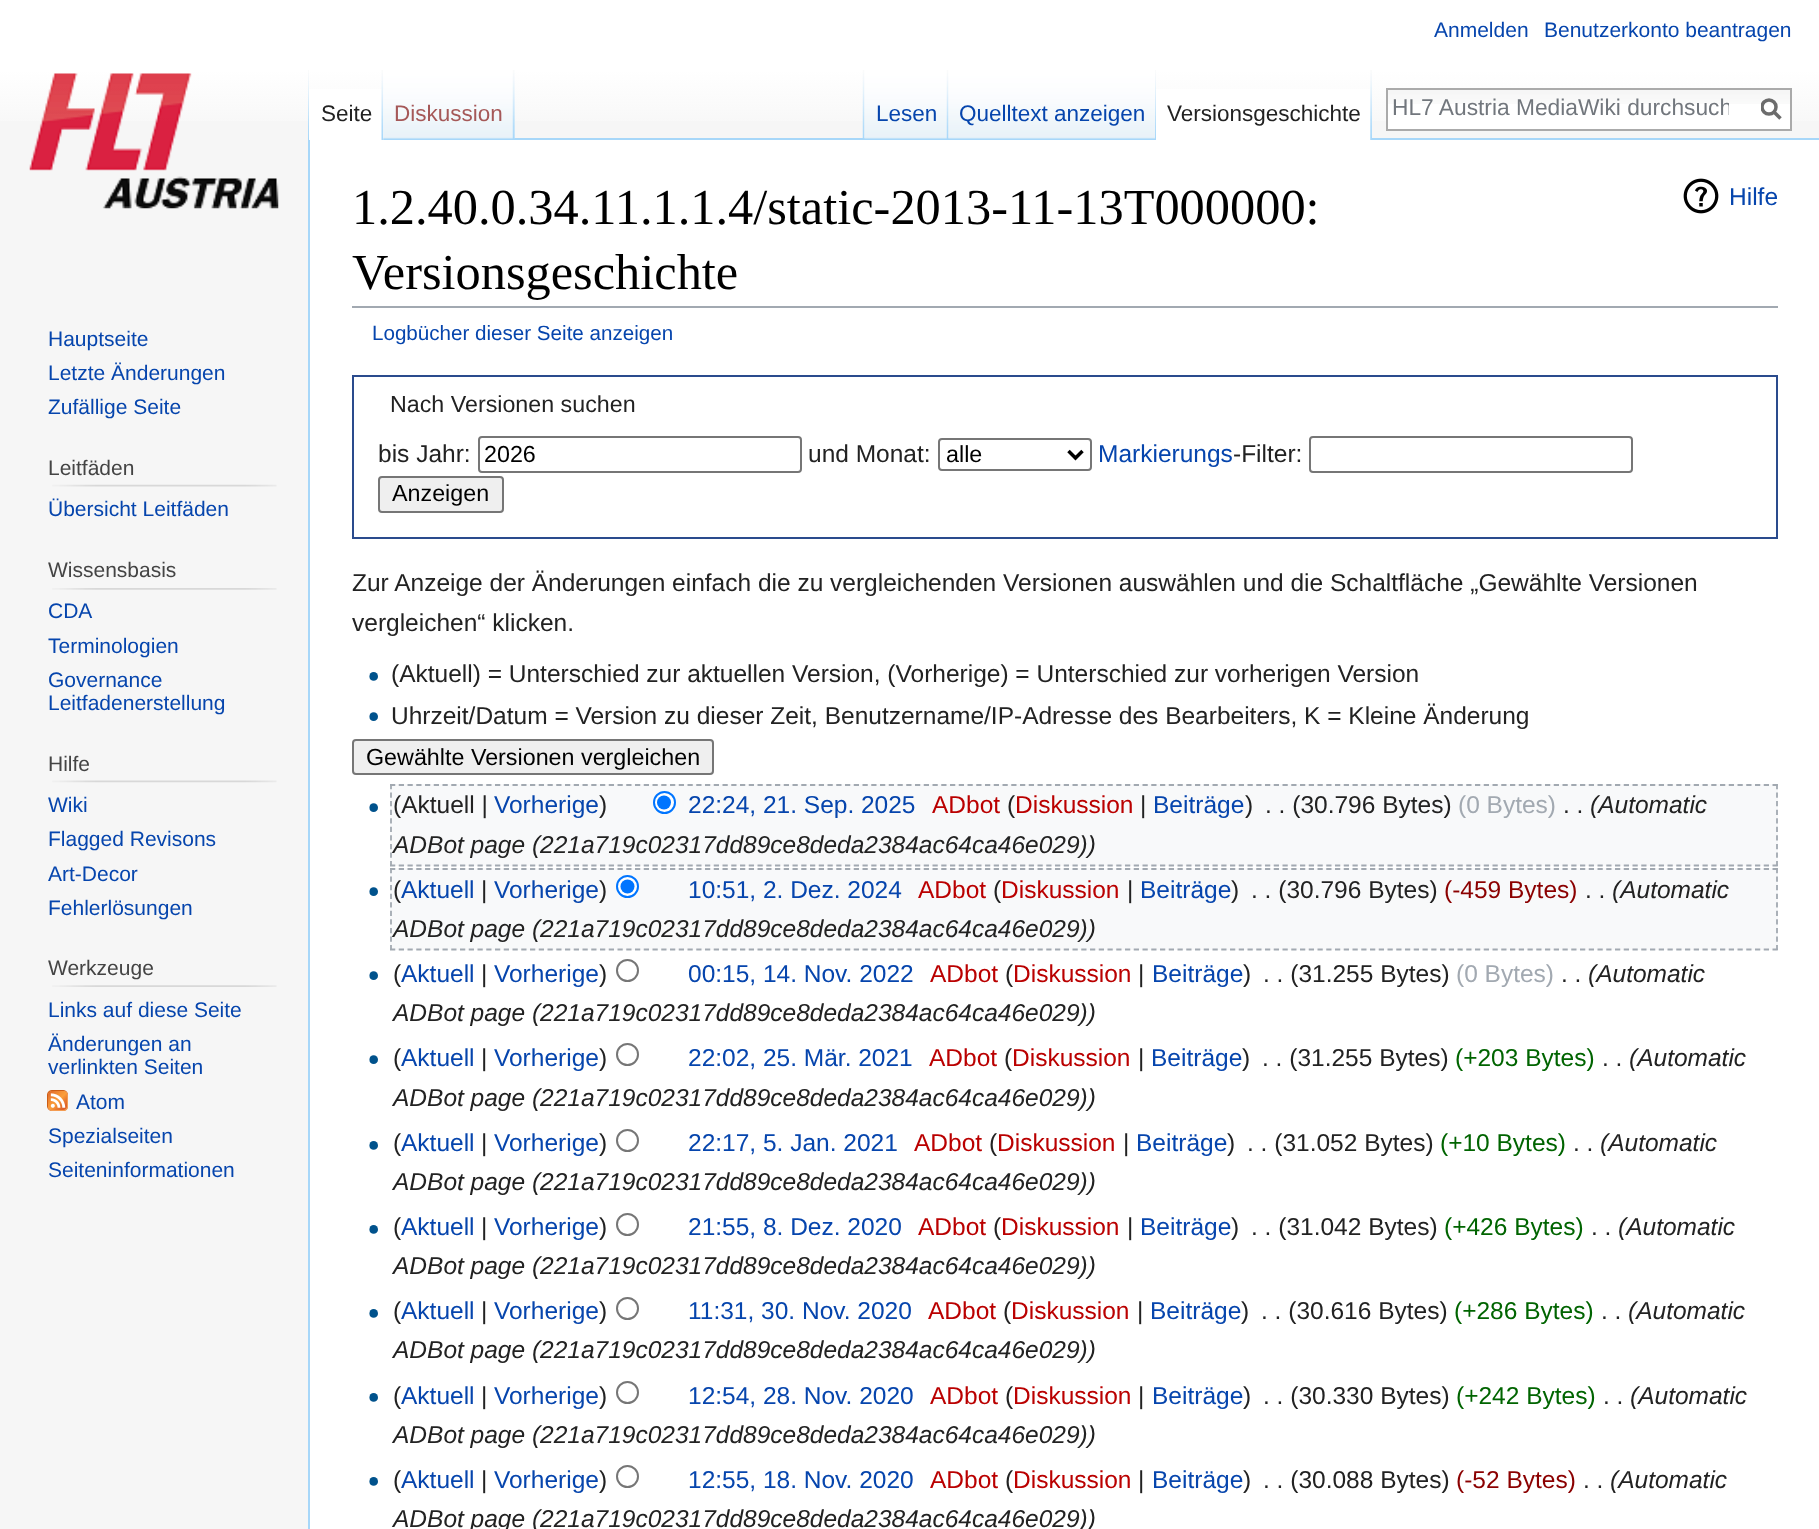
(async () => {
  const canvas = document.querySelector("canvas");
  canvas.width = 1819;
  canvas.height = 1529;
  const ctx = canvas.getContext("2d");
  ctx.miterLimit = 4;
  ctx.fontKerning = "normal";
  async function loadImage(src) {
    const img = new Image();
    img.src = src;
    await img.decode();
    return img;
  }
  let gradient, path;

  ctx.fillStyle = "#f6f6f6";
  ctx.fillRect(0, 0, 1819, 1529);
  gradient = ctx.createLinearGradient(910, 0, 910, 140);
  gradient.addColorStop(0.5, "#ffffff");
  gradient.addColorStop(1, "#f6f6f6");
  ctx.fillStyle = gradient;
  ctx.fillRect(0, 0, 1819, 121);
  ctx.drawImage(await loadImage("img/1.png"), 308, 70, 1, 68);
  ctx.drawImage(await loadImage("img/2.png"), 514, 70, 1, 68);
  ctx.fillStyle = "#a7d7f9";
  ctx.fillRect(308, 138, 2, 1391);
  ctx.fillStyle = "#ffffff";
  ctx.fillRect(309, 89, 75, 51);
  ctx.drawImage(await loadImage("img/3.png"), 381, 70, 3, 70);
  ctx.fillStyle = "#a7d7f9";
  ctx.fillRect(514, 138, 1305, 2);
  ctx.drawImage(await loadImage("img/4.png"), 383, 70, 132, 70);
  ctx.drawImage(await loadImage("img/5.png"), 512, 70, 3, 70);
  ctx.drawImage(await loadImage("img/6.png"), 862, 70, 3, 68);
  ctx.drawImage(await loadImage("img/7.png"), 864, 70, 85, 70);
  ctx.drawImage(await loadImage("img/5.png"), 946, 70, 3, 70);
  ctx.drawImage(await loadImage("img/8.png"), 948, 70, 207, 70);
  ctx.drawImage(await loadImage("img/9.png"), 1155, 70, 1, 70);
  ctx.fillStyle = "#ffffff";
  ctx.fillRect(1156, 89, 215, 51);
  ctx.drawImage(await loadImage("img/10.png"), 1370, 70, 2, 70);
  ctx.fillRect(1388, 104, 402, 25);
  ctx.drawImage(await loadImage("img/11.png"), 1388, 90, 402, 14);
  ctx.strokeStyle = "#aaaaaa";
  ctx.lineWidth = 2;
  ctx.strokeRect(1387, 89, 404, 41);
  path = new Path2D("M1780.5 118.5L1773.5 111.5");
  ctx.strokeStyle = "#6c6c6c";
  ctx.lineWidth = 3.5;
  ctx.stroke(path);
  ctx.save();
  ctx.beginPath();
  ctx.rect(1761, 98, 21, 23);
  ctx.clip();
  ctx.beginPath();
  ctx.arc(1769, 107, 7, 0, Math.PI * 2);
  ctx.stroke();
  ctx.restore();
  ctx.drawImage(await loadImage("img/12.png"), 29, 73, 250, 136);
  ctx.drawImage(await loadImage("img/13.png"), 52, 484, 225, 3);
  ctx.drawImage(await loadImage("img/14.png"), 52, 588, 225, 2);
  ctx.drawImage(await loadImage("img/15.png"), 52, 780, 225, 3);
  ctx.drawImage(await loadImage("img/16.png"), 52, 985, 225, 2);
  ctx.drawImage(await loadImage("img/17.png"), 47, 1090, 21, 21);
  ctx.fillRect(310, 140, 1509, 1389);
  ctx.fillStyle = "#a2a9b1";
  ctx.fillRect(352, 306, 1426, 2);
  ctx.drawImage(await loadImage("img/18.png"), 1683, 178, 36, 36);
  ctx.strokeStyle = "#2a4b8d";
  ctx.lineWidth = 2;
  ctx.strokeRect(353, 376, 1424, 162);
  ctx.beginPath();
  ctx.roundRect(479, 437, 322, 35, 3);
  ctx.strokeStyle = "#767676";
  ctx.stroke();
  ctx.beginPath();
  ctx.roundRect(939, 439, 152, 31, 3);
  ctx.stroke();
  path = new Path2D("M1068.5 451L1075.5 458L1082.5 451");
  ctx.strokeStyle = "#000000";
  ctx.lineWidth = 3.5;
  ctx.stroke(path);
  ctx.beginPath();
  ctx.roundRect(1310, 437, 322, 35, 3);
  ctx.strokeStyle = "#767676";
  ctx.lineWidth = 2;
  ctx.stroke();
  ctx.fillStyle = "#efefef";
  ctx.beginPath();
  ctx.roundRect(379, 477, 124, 35, 3);
  ctx.fill();
  ctx.stroke();
  ctx.drawImage(await loadImage("img/19.png"), 369, 672, 9, 9);
  ctx.drawImage(await loadImage("img/20.png"), 369, 712, 9, 9);
  ctx.beginPath();
  ctx.roundRect(353, 740, 360, 34, 3);
  ctx.fill();
  ctx.stroke();
  ctx.fillStyle = "#f8f9fa";
  ctx.fillRect(390, 784, 1388, 82);
  path = new Path2D("M390 785H1778");
  ctx.strokeStyle = "#a2a9b1";
  ctx.lineWidth = 1.8;
  ctx.setLineDash([5.25, 3.5]);
  ctx.stroke(path);
  path = new Path2D("M1777 784V866");
  ctx.setLineDash([5.25, 3.31]);
  ctx.stroke(path);
  path = new Path2D("M390 865.5H1778");
  ctx.setLineDash([5.25, 3.5]);
  ctx.stroke(path);
  path = new Path2D("M391 784V866");
  ctx.setLineDash([5.25, 3.31]);
  ctx.stroke(path);
  ctx.drawImage(await loadImage("img/20.png"), 369, 803, 9, 9);
  ctx.fillStyle = "#ffffff";
  ctx.beginPath();
  ctx.arc(664.5, 802.5, 10.5, 0, Math.PI * 2);
  ctx.fill();
  ctx.strokeStyle = "#0075ff";
  ctx.lineWidth = 2;
  ctx.setLineDash([]);
  ctx.stroke();
  ctx.fillStyle = "#0075ff";
  ctx.beginPath();
  ctx.arc(664, 802.5, 7, 0, Math.PI * 2);
  ctx.fill();
  ctx.fillStyle = "#f8f9fa";
  ctx.fillRect(390, 868, 1388, 82);
  path = new Path2D("M390 869H1778");
  ctx.strokeStyle = "#a2a9b1";
  ctx.lineWidth = 1.8;
  ctx.setLineDash([5.25, 3.5]);
  ctx.stroke(path);
  path = new Path2D("M1777 868V950");
  ctx.setLineDash([5.25, 3.31]);
  ctx.stroke(path);
  path = new Path2D("M390 949.5H1778");
  ctx.setLineDash([5.25, 3.5]);
  ctx.stroke(path);
  path = new Path2D("M391 868V950");
  ctx.setLineDash([5.25, 3.31]);
  ctx.stroke(path);
  ctx.drawImage(await loadImage("img/20.png"), 369, 887, 9, 9);
  ctx.fillStyle = "#ffffff";
  ctx.beginPath();
  ctx.arc(627.5, 886.5, 10.5, 0, Math.PI * 2);
  ctx.fill();
  ctx.strokeStyle = "#0075ff";
  ctx.lineWidth = 2;
  ctx.setLineDash([]);
  ctx.stroke();
  ctx.fillStyle = "#0075ff";
  ctx.beginPath();
  ctx.arc(627.5, 886.5, 7, 0, Math.PI * 2);
  ctx.fill();
  ctx.drawImage(await loadImage("img/20.png"), 369, 971, 9, 9);
  ctx.beginPath();
  ctx.arc(627.5, 970.5, 10.5, 0, Math.PI * 2);
  ctx.strokeStyle = "#767676";
  ctx.stroke();
  ctx.drawImage(await loadImage("img/20.png"), 369, 1055, 9, 9);
  ctx.beginPath();
  ctx.arc(627.5, 1054.5, 10.5, 0, Math.PI * 2);
  ctx.stroke();
  ctx.drawImage(await loadImage("img/19.png"), 369, 1141, 9, 9);
  ctx.beginPath();
  ctx.arc(627.5, 1140.5, 10.5, 0, Math.PI * 2);
  ctx.stroke();
  ctx.drawImage(await loadImage("img/19.png"), 369, 1225, 9, 9);
  ctx.beginPath();
  ctx.arc(627.5, 1224.5, 10.5, 0, Math.PI * 2);
  ctx.stroke();
  ctx.drawImage(await loadImage("img/19.png"), 369, 1309, 9, 9);
  ctx.beginPath();
  ctx.arc(627.5, 1308.5, 10.5, 0, Math.PI * 2);
  ctx.stroke();
  ctx.drawImage(await loadImage("img/19.png"), 369, 1393, 9, 9);
  ctx.beginPath();
  ctx.arc(627.5, 1392.5, 10.5, 0, Math.PI * 2);
  ctx.stroke();
  ctx.drawImage(await loadImage("img/19.png"), 369, 1477, 9, 9);
  ctx.beginPath();
  ctx.arc(627.5, 1476.5, 10.5, 0, Math.PI * 2);
  ctx.stroke();
  ctx.font = "21px Liberation Sans";
  ctx.fillStyle = "#0645ad";
  ctx.fillText("Anmelden", 1434, 37);
  ctx.fillText("Benutzerkonto beantragen", 1544, 37);
  ctx.font = "22.5px Liberation Sans";
  ctx.fillStyle = "#222222";
  ctx.fillText("Seite", 321, 121);
  ctx.fillStyle = "#a55858";
  ctx.fillText("Diskussion", 394, 121);
  ctx.fillStyle = "#0645ad";
  ctx.fillText("Lesen", 876, 121);
  ctx.fillText("Quelltext anzeigen", 959, 121);
  ctx.fillStyle = "#222222";
  ctx.fillText("Versionsgeschichte", 1167, 121);
  ctx.save();
  ctx.beginPath();
  ctx.rect(1391, 95, 338, 26);
  ctx.clip();
  ctx.font = "22.75px Liberation Sans";
  ctx.fillStyle = "#72777d";
  ctx.fillText("HL7 Austria MediaWiki durchsuch", 1392, 115);
  ctx.restore();
  ctx.font = "21px Liberation Sans";
  ctx.fillStyle = "#0645ad";
  for (const [text, x, y] of [
    ["Hauptseite", 48, 346],
    ["Letzte Änderungen", 48, 380],
    ["Zufällige Seite", 48, 414],
  ]) {
    ctx.fillText(text, x, y);
  }
  ctx.fillStyle = "#444444";
  ctx.fillText("Leitfäden", 48, 475);
  ctx.fillStyle = "#0645ad";
  ctx.fillText("Übersicht Leitfäden", 48, 516);
  ctx.fillStyle = "#444444";
  ctx.fillText("Wissensbasis", 48, 577);
  ctx.fillStyle = "#0645ad";
  for (const [text, x, y] of [
    ["CDA", 48, 618],
    ["Terminologien", 48, 653],
    ["Governance", 48, 687],
    ["Leitfadenerstellung", 48, 710],
  ]) {
    ctx.fillText(text, x, y);
  }
  ctx.fillStyle = "#444444";
  ctx.fillText("Hilfe", 48, 771);
  ctx.fillStyle = "#0645ad";
  for (const [text, x, y] of [
    ["Wiki", 48, 812],
    ["Flagged Revisons", 48, 846],
    ["Art-Decor", 48, 881],
    ["Fehlerlösungen", 48, 915],
  ]) {
    ctx.fillText(text, x, y);
  }
  ctx.fillStyle = "#444444";
  ctx.fillText("Werkzeuge", 48, 975);
  ctx.fillStyle = "#0645ad";
  for (const [text, x, y] of [
    ["Links auf diese Seite", 48, 1017],
    ["Änderungen an", 48, 1051],
    ["verlinkten Seiten", 48, 1074],
    ["Atom", 76, 1109],
    ["Spezialseiten", 48, 1143],
    ["Seiteninformationen", 48, 1177],
  ]) {
    ctx.fillText(text, x, y);
  }
  ctx.font = "50.4px Liberation Serif";
  ctx.fillStyle = "#000000";
  ctx.fillText("1.2.40.0.34.11.1.1.4/static-2013-11-13T000000:", 352, 224);
  ctx.fillText("Versionsgeschichte", 352, 289);
  ctx.font = "24.5px Liberation Sans";
  ctx.fillStyle = "#0645ad";
  ctx.fillText("Hilfe", 1729, 205);
  ctx.font = "20.6px Liberation Sans";
  ctx.fillText("Logbücher dieser Seite anzeigen", 372, 340);
  ctx.font = "23.25px Liberation Sans";
  ctx.fillStyle = "#222222";
  ctx.fillText("Nach Versionen suchen", 390, 412);
  ctx.font = "24.5px Liberation Sans";
  ctx.fillText("bis Jahr:", 378, 462);
  ctx.font = "23.3px Liberation Sans";
  ctx.fillStyle = "#000000";
  ctx.fillText("2026", 484, 462);
  ctx.font = "24.5px Liberation Sans";
  ctx.fillStyle = "#222222";
  ctx.fillText("und Monat:", 808, 462);
  ctx.font = "23.3px Liberation Sans";
  ctx.fillStyle = "#000000";
  ctx.fillText("alle", 946, 462);
  ctx.font = "24.5px Liberation Sans";
  ctx.fillStyle = "#0645ad";
  ctx.fillText("Markierungs", 1098, 462);
  ctx.fillStyle = "#222222";
  ctx.fillText("-Filter:", 1233, 462);
  ctx.font = "23.3px Liberation Sans";
  ctx.fillStyle = "#000000";
  ctx.fillText("Anzeigen", 392, 501);
  ctx.font = "24.5px Liberation Sans";
  ctx.fillStyle = "#222222";
  for (const [text, x, y] of [
    ["Zur Anzeige der Änderungen einfach die zu vergleichenden Versionen auswählen und die Schaltfläche „Gewählte Versionen", 352, 591],
    ["vergleichen“ klicken.", 352, 631],
    ["(Aktuell) = Unterschied zur aktuellen Version, (Vorherige) = Unterschied zur vorherigen Version", 391, 682],
    ["Uhrzeit/Datum = Version zu dieser Zeit, Benutzername/IP-Adresse des Bearbeiters, K = Kleine Änderung", 391, 724],
  ]) {
    ctx.fillText(text, x, y);
  }
  ctx.font = "23.3px Liberation Sans";
  ctx.fillStyle = "#000000";
  ctx.fillText("Gewählte Versionen vergleichen", 366, 765);
  ctx.font = "24.5px Liberation Sans";
  ctx.fillStyle = "#222222";
  ctx.fillText("(Aktuell |", 393, 813);
  ctx.fillStyle = "#0645ad";
  ctx.fillText("Vorherige", 494, 813);
  ctx.fillStyle = "#222222";
  ctx.fillText(")", 599, 813);
  ctx.fillStyle = "#0645ad";
  ctx.fillText("22:24, 21. Sep. 2025", 688, 813);
  ctx.fillStyle = "#ba0000";
  ctx.fillText("ADbot", 932, 813);
  ctx.fillStyle = "#222222";
  ctx.fillText("(", 1007, 813);
  ctx.fillStyle = "#ba0000";
  ctx.fillText("Diskussion", 1015, 813);
  ctx.fillStyle = "#222222";
  ctx.fillText("|", 1140, 813);
  ctx.fillStyle = "#0645ad";
  ctx.fillText("Beiträge", 1153, 813);
  ctx.fillStyle = "#222222";
  ctx.fillText(")", 1245, 813);
  ctx.fillText(". . (30.796 Bytes)", 1265, 813);
  ctx.fillStyle = "#a2a9b1";
  ctx.fillText("(0 Bytes)", 1458, 813);
  ctx.fillStyle = "#222222";
  ctx.fillText(". .", 1563, 813);
  ctx.font = "italic 24.5px Liberation Sans";
  ctx.fillText("(Automatic", 1590, 813);
  ctx.fillText("ADBot page (221a719c02317dd89ce8deda2384ac64ca46e029))", 393, 853);
  ctx.font = "24.5px Liberation Sans";
  ctx.fillText("(", 393, 898);
  ctx.fillStyle = "#0645ad";
  ctx.fillText("Aktuell", 401, 898);
  ctx.fillStyle = "#222222";
  ctx.fillText("|", 481, 898);
  ctx.fillStyle = "#0645ad";
  ctx.fillText("Vorherige", 494, 898);
  ctx.fillStyle = "#222222";
  ctx.fillText(")", 599, 898);
  ctx.fillStyle = "#0645ad";
  ctx.fillText("10:51, 2. Dez. 2024", 688, 898);
  ctx.fillStyle = "#ba0000";
  ctx.fillText("ADbot", 918, 898);
  ctx.fillStyle = "#222222";
  ctx.fillText("(", 993, 898);
  ctx.fillStyle = "#ba0000";
  ctx.fillText("Diskussion", 1001, 898);
  ctx.fillStyle = "#222222";
  ctx.fillText("|", 1127, 898);
  ctx.fillStyle = "#0645ad";
  ctx.fillText("Beiträge", 1140, 898);
  ctx.fillStyle = "#222222";
  ctx.fillText(")", 1231, 898);
  ctx.fillText(". . (30.796 Bytes)", 1251, 898);
  ctx.fillStyle = "#8b0000";
  ctx.fillText("(-459 Bytes)", 1444, 898);
  ctx.fillStyle = "#222222";
  ctx.fillText(". .", 1585, 898);
  ctx.font = "italic 24.5px Liberation Sans";
  ctx.fillText("(Automatic", 1612, 898);
  ctx.fillText("ADBot page (221a719c02317dd89ce8deda2384ac64ca46e029))", 393, 937);
  ctx.font = "24.5px Liberation Sans";
  ctx.fillText("(", 393, 982);
  ctx.fillStyle = "#0645ad";
  ctx.fillText("Aktuell", 401, 982);
  ctx.fillStyle = "#222222";
  ctx.fillText("|", 481, 982);
  ctx.fillStyle = "#0645ad";
  ctx.fillText("Vorherige", 494, 982);
  ctx.fillStyle = "#222222";
  ctx.fillText(")", 599, 982);
  ctx.fillStyle = "#0645ad";
  ctx.fillText("00:15, 14. Nov. 2022", 688, 982);
  ctx.fillStyle = "#ba0000";
  ctx.fillText("ADbot", 930, 982);
  ctx.fillStyle = "#222222";
  ctx.fillText("(", 1005, 982);
  ctx.fillStyle = "#ba0000";
  ctx.fillText("Diskussion", 1013, 982);
  ctx.fillStyle = "#222222";
  ctx.fillText("|", 1138, 982);
  ctx.fillStyle = "#0645ad";
  ctx.fillText("Beiträge", 1152, 982);
  ctx.fillStyle = "#222222";
  ctx.fillText(")", 1243, 982);
  ctx.fillText(". . (31.255 Bytes)", 1263, 982);
  ctx.fillStyle = "#a2a9b1";
  ctx.fillText("(0 Bytes)", 1456, 982);
  ctx.fillStyle = "#222222";
  ctx.fillText(". .", 1561, 982);
  ctx.font = "italic 24.5px Liberation Sans";
  ctx.fillText("(Automatic", 1588, 982);
  ctx.fillText("ADBot page (221a719c02317dd89ce8deda2384ac64ca46e029))", 393, 1021);
  ctx.font = "24.5px Liberation Sans";
  ctx.fillText("(", 393, 1066);
  ctx.fillStyle = "#0645ad";
  ctx.fillText("Aktuell", 401, 1066);
  ctx.fillStyle = "#222222";
  ctx.fillText("|", 481, 1066);
  ctx.fillStyle = "#0645ad";
  ctx.fillText("Vorherige", 494, 1066);
  ctx.fillStyle = "#222222";
  ctx.fillText(")", 599, 1066);
  ctx.fillStyle = "#0645ad";
  ctx.fillText("22:02, 25. Mär. 2021", 688, 1066);
  ctx.fillStyle = "#ba0000";
  ctx.fillText("ADbot", 929, 1066);
  ctx.fillStyle = "#222222";
  ctx.fillText("(", 1004, 1066);
  ctx.fillStyle = "#ba0000";
  ctx.fillText("Diskussion", 1012, 1066);
  ctx.fillStyle = "#222222";
  ctx.fillText("|", 1138, 1066);
  ctx.fillStyle = "#0645ad";
  ctx.fillText("Beiträge", 1151, 1066);
  ctx.fillStyle = "#222222";
  ctx.fillText(")", 1242, 1066);
  ctx.fillText(". . (31.255 Bytes)", 1262, 1066);
  ctx.fillStyle = "#006400";
  ctx.fillText("(+203 Bytes)", 1455, 1066);
  ctx.fillStyle = "#222222";
  ctx.fillText(". .", 1602, 1066);
  ctx.font = "italic 24.5px Liberation Sans";
  ctx.fillText("(Automatic", 1629, 1066);
  ctx.fillText("ADBot page (221a719c02317dd89ce8deda2384ac64ca46e029))", 393, 1106);
  ctx.font = "24.5px Liberation Sans";
  ctx.fillText("(", 393, 1151);
  ctx.fillStyle = "#0645ad";
  ctx.fillText("Aktuell", 401, 1151);
  ctx.fillStyle = "#222222";
  ctx.fillText("|", 481, 1151);
  ctx.fillStyle = "#0645ad";
  ctx.fillText("Vorherige", 494, 1151);
  ctx.fillStyle = "#222222";
  ctx.fillText(")", 599, 1151);
  ctx.fillStyle = "#0645ad";
  ctx.fillText("22:17, 5. Jan. 2021", 688, 1151);
  ctx.fillStyle = "#ba0000";
  ctx.fillText("ADbot", 914, 1151);
  ctx.fillStyle = "#222222";
  ctx.fillText("(", 989, 1151);
  ctx.fillStyle = "#ba0000";
  ctx.fillText("Diskussion", 997, 1151);
  ctx.fillStyle = "#222222";
  ctx.fillText("|", 1123, 1151);
  ctx.fillStyle = "#0645ad";
  ctx.fillText("Beiträge", 1136, 1151);
  ctx.fillStyle = "#222222";
  ctx.fillText(")", 1227, 1151);
  ctx.fillText(". . (31.052 Bytes)", 1247, 1151);
  ctx.fillStyle = "#006400";
  ctx.fillText("(+10 Bytes)", 1440, 1151);
  ctx.fillStyle = "#222222";
  ctx.fillText(". .", 1573, 1151);
  ctx.font = "italic 24.5px Liberation Sans";
  ctx.fillText("(Automatic", 1600, 1151);
  ctx.fillText("ADBot page (221a719c02317dd89ce8deda2384ac64ca46e029))", 393, 1190);
  ctx.font = "24.5px Liberation Sans";
  ctx.fillText("(", 393, 1235);
  ctx.fillStyle = "#0645ad";
  ctx.fillText("Aktuell", 401, 1235);
  ctx.fillStyle = "#222222";
  ctx.fillText("|", 481, 1235);
  ctx.fillStyle = "#0645ad";
  ctx.fillText("Vorherige", 494, 1235);
  ctx.fillStyle = "#222222";
  ctx.fillText(")", 599, 1235);
  ctx.fillStyle = "#0645ad";
  ctx.fillText("21:55, 8. Dez. 2020", 688, 1235);
  ctx.fillStyle = "#ba0000";
  ctx.fillText("ADbot", 918, 1235);
  ctx.fillStyle = "#222222";
  ctx.fillText("(", 993, 1235);
  ctx.fillStyle = "#ba0000";
  ctx.fillText("Diskussion", 1001, 1235);
  ctx.fillStyle = "#222222";
  ctx.fillText("|", 1127, 1235);
  ctx.fillStyle = "#0645ad";
  ctx.fillText("Beiträge", 1140, 1235);
  ctx.fillStyle = "#222222";
  ctx.fillText(")", 1231, 1235);
  ctx.fillText(". . (31.042 Bytes)", 1251, 1235);
  ctx.fillStyle = "#006400";
  ctx.fillText("(+426 Bytes)", 1444, 1235);
  ctx.fillStyle = "#222222";
  ctx.fillText(". .", 1591, 1235);
  ctx.font = "italic 24.5px Liberation Sans";
  ctx.fillText("(Automatic", 1618, 1235);
  ctx.fillText("ADBot page (221a719c02317dd89ce8deda2384ac64ca46e029))", 393, 1274);
  ctx.font = "24.5px Liberation Sans";
  ctx.fillText("(", 393, 1319);
  ctx.fillStyle = "#0645ad";
  ctx.fillText("Aktuell", 401, 1319);
  ctx.fillStyle = "#222222";
  ctx.fillText("|", 481, 1319);
  ctx.fillStyle = "#0645ad";
  ctx.fillText("Vorherige", 494, 1319);
  ctx.fillStyle = "#222222";
  ctx.fillText(")", 599, 1319);
  ctx.fillStyle = "#0645ad";
  ctx.fillText("11:31, 30. Nov. 2020", 688, 1319);
  ctx.fillStyle = "#ba0000";
  ctx.fillText("ADbot", 928, 1319);
  ctx.fillStyle = "#222222";
  ctx.fillText("(", 1003, 1319);
  ctx.fillStyle = "#ba0000";
  ctx.fillText("Diskussion", 1011, 1319);
  ctx.fillStyle = "#222222";
  ctx.fillText("|", 1137, 1319);
  ctx.fillStyle = "#0645ad";
  ctx.fillText("Beiträge", 1150, 1319);
  ctx.fillStyle = "#222222";
  ctx.fillText(")", 1241, 1319);
  ctx.fillText(". . (30.616 Bytes)", 1261, 1319);
  ctx.fillStyle = "#006400";
  ctx.fillText("(+286 Bytes)", 1454, 1319);
  ctx.fillStyle = "#222222";
  ctx.fillText(". .", 1601, 1319);
  ctx.font = "italic 24.5px Liberation Sans";
  ctx.fillText("(Automatic", 1628, 1319);
  ctx.fillText("ADBot page (221a719c02317dd89ce8deda2384ac64ca46e029))", 393, 1358);
  ctx.font = "24.5px Liberation Sans";
  ctx.fillText("(", 393, 1404);
  ctx.fillStyle = "#0645ad";
  ctx.fillText("Aktuell", 401, 1404);
  ctx.fillStyle = "#222222";
  ctx.fillText("|", 481, 1404);
  ctx.fillStyle = "#0645ad";
  ctx.fillText("Vorherige", 494, 1404);
  ctx.fillStyle = "#222222";
  ctx.fillText(")", 599, 1404);
  ctx.fillStyle = "#0645ad";
  ctx.fillText("12:54, 28. Nov. 2020", 688, 1404);
  ctx.fillStyle = "#ba0000";
  ctx.fillText("ADbot", 930, 1404);
  ctx.fillStyle = "#222222";
  ctx.fillText("(", 1005, 1404);
  ctx.fillStyle = "#ba0000";
  ctx.fillText("Diskussion", 1013, 1404);
  ctx.fillStyle = "#222222";
  ctx.fillText("|", 1138, 1404);
  ctx.fillStyle = "#0645ad";
  ctx.fillText("Beiträge", 1152, 1404);
  ctx.fillStyle = "#222222";
  ctx.fillText(")", 1243, 1404);
  ctx.fillText(". . (30.330 Bytes)", 1263, 1404);
  ctx.fillStyle = "#006400";
  ctx.fillText("(+242 Bytes)", 1456, 1404);
  ctx.fillStyle = "#222222";
  ctx.fillText(". .", 1603, 1404);
  ctx.font = "italic 24.5px Liberation Sans";
  ctx.fillText("(Automatic", 1630, 1404);
  ctx.fillText("ADBot page (221a719c02317dd89ce8deda2384ac64ca46e029))", 393, 1443);
  ctx.font = "24.5px Liberation Sans";
  ctx.fillText("(", 393, 1488);
  ctx.fillStyle = "#0645ad";
  ctx.fillText("Aktuell", 401, 1488);
  ctx.fillStyle = "#222222";
  ctx.fillText("|", 481, 1488);
  ctx.fillStyle = "#0645ad";
  ctx.fillText("Vorherige", 494, 1488);
  ctx.fillStyle = "#222222";
  ctx.fillText(")", 599, 1488);
  ctx.fillStyle = "#0645ad";
  ctx.fillText("12:55, 18. Nov. 2020", 688, 1488);
  ctx.fillStyle = "#ba0000";
  ctx.fillText("ADbot", 930, 1488);
  ctx.fillStyle = "#222222";
  ctx.fillText("(", 1005, 1488);
  ctx.fillStyle = "#ba0000";
  ctx.fillText("Diskussion", 1013, 1488);
  ctx.fillStyle = "#222222";
  ctx.fillText("|", 1138, 1488);
  ctx.fillStyle = "#0645ad";
  ctx.fillText("Beiträge", 1152, 1488);
  ctx.fillStyle = "#222222";
  ctx.fillText(")", 1243, 1488);
  ctx.fillText(". . (30.088 Bytes)", 1263, 1488);
  ctx.fillStyle = "#8b0000";
  ctx.fillText("(-52 Bytes)", 1456, 1488);
  ctx.fillStyle = "#222222";
  ctx.fillText(". .", 1583, 1488);
  ctx.font = "italic 24.5px Liberation Sans";
  ctx.fillText("(Automatic", 1610, 1488);
  ctx.fillText("ADBot page (221a719c02317dd89ce8deda2384ac64ca46e029))", 393, 1527);
})();
